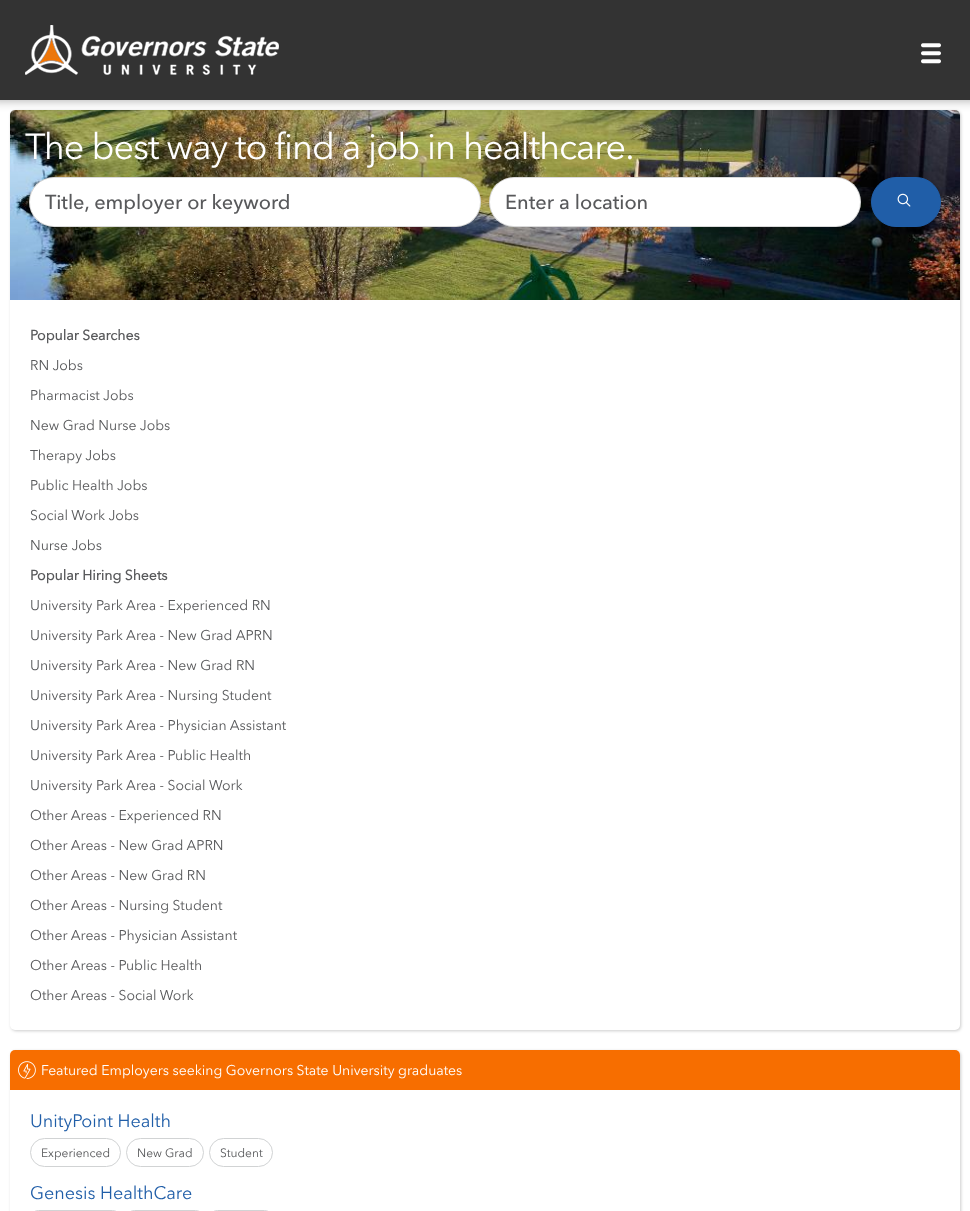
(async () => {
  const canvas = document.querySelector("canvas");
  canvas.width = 970;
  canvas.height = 1211;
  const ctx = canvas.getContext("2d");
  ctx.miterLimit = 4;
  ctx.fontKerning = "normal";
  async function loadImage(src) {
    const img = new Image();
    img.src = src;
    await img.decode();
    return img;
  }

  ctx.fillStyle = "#ffffff";
  ctx.fillRect(0, 0, 970, 1211);
  ctx.fillStyle = "rgba(0, 0, 0, 0.2)";
  ctx.filter = "blur(1.5px)";
  ctx.beginPath();
  ctx.roundRect(11, 111, 950, 920, 5);
  ctx.fill();
  ctx.filter = "none";
  ctx.fillStyle = "#ffffff";
  ctx.beginPath();
  ctx.roundRect(10, 110, 950, 920, 5);
  ctx.fill();
  ctx.drawImage(await loadImage("img/3.png"), 10, 110, 950, 190);
  ctx.fillStyle = "rgba(0, 0, 0, 0.35)";
  ctx.filter = "blur(5.5px)";
  ctx.beginPath();
  ctx.rect(-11, -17, 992, 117);
  ctx.fill();
  ctx.filter = "none";
  ctx.fillStyle = "#333333";
  ctx.fillRect(0, 0, 970, 100);
  ctx.drawImage(await loadImage("img/1.png"), 25, 25, 254, 50);
  ctx.drawImage(await loadImage("img/2.png"), 921, 43, 20, 21);
  ctx.fillStyle = "#ffffff";
  ctx.beginPath();
  ctx.roundRect(29, 177, 452, 50, 25);
  ctx.fill();
  ctx.beginPath();
  ctx.roundRect(29.5, 177.5, 451, 49, 24.5);
  ctx.strokeStyle = "rgba(0, 0, 0, 0.15)";
  ctx.stroke();
  ctx.beginPath();
  ctx.roundRect(489, 177, 372, 50, 25);
  ctx.fill();
  ctx.beginPath();
  ctx.roundRect(489.5, 177.5, 371, 49, 24.5);
  ctx.stroke();
  ctx.fillStyle = "#205ea8";
  ctx.beginPath();
  ctx.roundRect(871.5, 177.5, 69, 49, 24.5);
  ctx.fill();
  ctx.strokeStyle = "#205ea8";
  ctx.stroke();
  ctx.drawImage(await loadImage("img/4.png"), 897, 193, 14, 14);
  ctx.fillStyle = "rgba(0, 0, 0, 0.2)";
  ctx.filter = "blur(1.5px)";
  ctx.beginPath();
  ctx.roundRect(11, 1051, 950, 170, 5);
  ctx.fill();
  ctx.filter = "none";
  ctx.fillStyle = "#ffffff";
  ctx.beginPath();
  ctx.roundRect(10, 1050, 950, 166, 5);
  ctx.fill();
  ctx.fillStyle = "#f76e00";
  ctx.beginPath();
  ctx.roundRect(10, 1050, 950, 40, [5, 5, 0, 0]);
  ctx.fill();
  ctx.drawImage(await loadImage("img/5.png"), 18, 1061, 18, 18);
  ctx.beginPath();
  ctx.roundRect(30.5, 1138.5, 90, 28, 14);
  ctx.strokeStyle = "#d1d3d4";
  ctx.stroke();
  ctx.beginPath();
  ctx.roundRect(126.5, 1138.5, 77, 28, 14);
  ctx.stroke();
  ctx.beginPath();
  ctx.roundRect(209.5, 1138.5, 63, 28, 14);
  ctx.stroke();
  ctx.beginPath();
  ctx.roundRect(30.5, 1210.5, 90, 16, 14);
  ctx.stroke();
  ctx.beginPath();
  ctx.roundRect(126.5, 1210.5, 77, 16, 14);
  ctx.stroke();
  ctx.beginPath();
  ctx.roundRect(209.5, 1210.5, 63, 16, 14);
  ctx.stroke();
  ctx.letterSpacing = "-1px";
  ctx.font = "36px 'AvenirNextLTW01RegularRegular'";
  ctx.fillStyle = "#ffffff";
  ctx.fillText("The best way to find a job in healthcare.", 25, 159);
  ctx.letterSpacing = "0px";
  ctx.font = "500 20px Avenir Next";
  ctx.fillStyle = "#58595b";
  ctx.fillText("Title, employer or keyword", 45, 209);
  ctx.fillText("Enter a location", 505, 209);
  ctx.font = "bold 14px 'AvenirNextLTW01RegularRegular'";
  ctx.fillText("Popular Searches", 30, 340);
  ctx.font = "14px 'AvenirNextLTW01RegularRegular'";
  for (const [text, x, y] of [
    ["RN Jobs", 30, 370],
    ["Pharmacist Jobs", 30, 400],
    ["New Grad Nurse Jobs", 30, 430],
    ["Therapy Jobs", 30, 460],
    ["Public Health Jobs", 30, 490],
    ["Social Work Jobs", 30, 520],
    ["Nurse Jobs", 30, 550],
  ]) {
    ctx.fillText(text, x, y);
  }
  ctx.font = "bold 14px 'AvenirNextLTW01RegularRegular'";
  ctx.fillText("Popular Hiring Sheets", 30, 580);
  ctx.font = "14px 'AvenirNextLTW01RegularRegular'";
  for (const [text, x, y] of [
    ["University Park Area - Experienced RN", 30, 610],
    ["University Park Area - New Grad APRN", 30, 640],
    ["University Park Area - New Grad RN", 30, 670],
    ["University Park Area - Nursing Student", 30, 700],
    ["University Park Area - Physician Assistant", 30, 730],
    ["University Park Area - Public Health", 30, 760],
    ["University Park Area - Social Work", 30, 790],
    ["Other Areas - Experienced RN", 30, 820],
    ["Other Areas - New Grad APRN", 30, 850],
    ["Other Areas - New Grad RN", 30, 880],
    ["Other Areas - Nursing Student", 30, 910],
    ["Other Areas - Physician Assistant", 30, 940],
    ["Other Areas - Public Health", 30, 970],
    ["Other Areas - Social Work", 30, 1000],
  ]) {
    ctx.fillText(text, x, y);
  }
  ctx.fillStyle = "#ffffff";
  ctx.fillText("Featured Employers seeking Governors State University graduates", 41, 1075);
  ctx.font = "18px 'AvenirNextLTW01RegularRegular'";
  ctx.fillStyle = "#205ea8";
  ctx.fillText("UnityPoint Health", 30, 1127);
  ctx.font = "12px 'AvenirNextLTW01RegularRegular'";
  ctx.fillStyle = "#58595b";
  for (const [text, x, y] of [
    ["Experienced", 41, 1157],
    ["New Grad", 137, 1157],
    ["Student", 220, 1157],
  ]) {
    ctx.fillText(text, x, y);
  }
  ctx.font = "18px 'AvenirNextLTW01RegularRegular'";
  ctx.fillStyle = "#205ea8";
  ctx.fillText("Genesis HealthCare", 30, 1199);
})();
